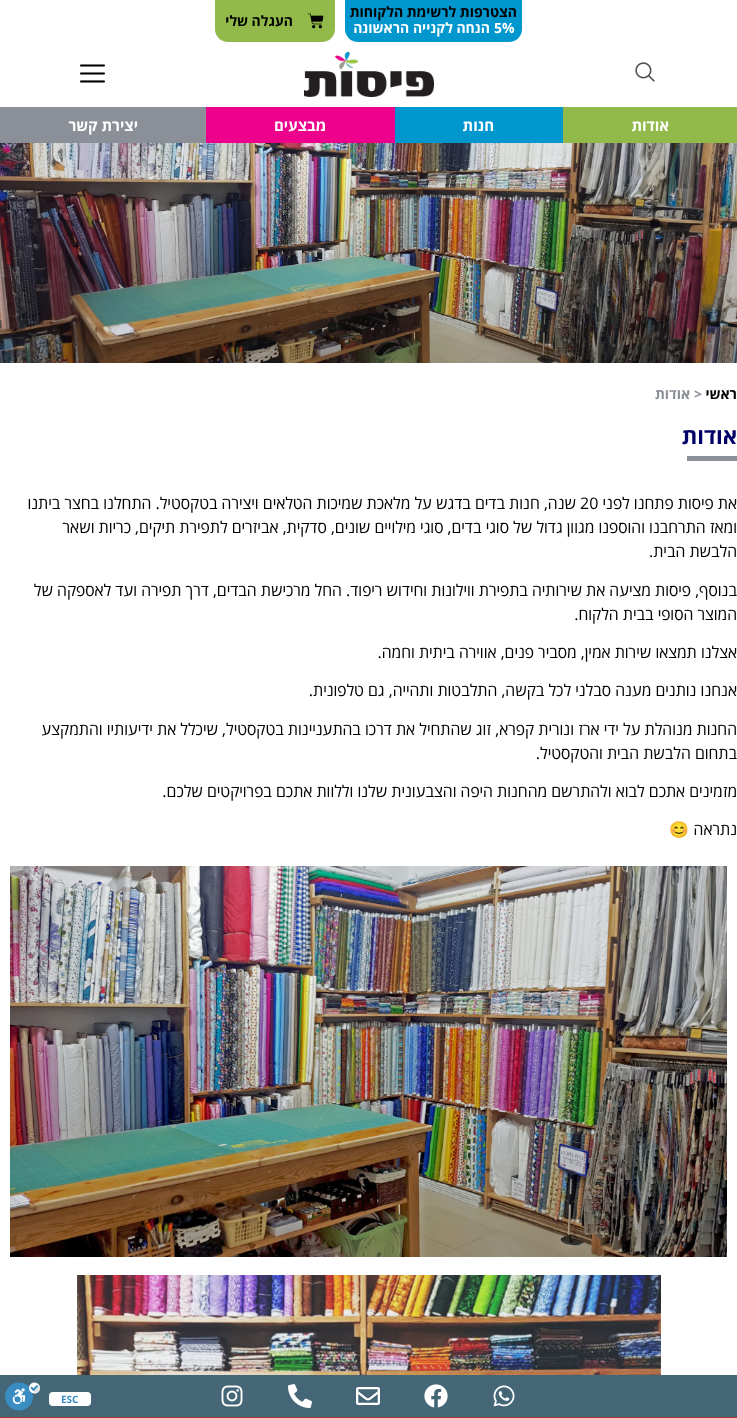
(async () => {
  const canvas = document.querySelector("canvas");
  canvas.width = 737;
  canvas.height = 1418;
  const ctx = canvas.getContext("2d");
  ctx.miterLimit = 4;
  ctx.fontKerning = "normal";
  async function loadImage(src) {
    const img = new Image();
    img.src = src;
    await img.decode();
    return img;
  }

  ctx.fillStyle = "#ffffff";
  ctx.fillRect(0, 0, 737, 1418);
  ctx.fillStyle = "#0096ce";
  ctx.beginPath();
  ctx.roundRect(345, 0, 177, 42, [0, 0, 13, 13]);
  ctx.fill();
  ctx.fillStyle = "#92ba4a";
  ctx.beginPath();
  ctx.roundRect(215, 0, 120, 42, [0, 0, 13, 13]);
  ctx.fill();
  ctx.drawImage(await loadImage("img/1.png"), 308, 13, 16, 16);
  ctx.drawImage(await loadImage("img/2.png"), 635, 62, 20, 20);
  ctx.drawImage(await loadImage("img/3.png"), 304, 52, 130, 45);
  ctx.drawImage(await loadImage("img/4.png"), 80, 64, 25, 19);
  for (const [x, y, w, h, color] of [
    [563, 107, 174, 36, "#92ba4a"],
    [395, 107, 168, 36, "#0096ce"],
    [206, 107, 189, 36, "#ec008c"],
    [0, 107, 206, 36, "#8b8f98"],
  ]) {
    ctx.fillStyle = color;
    ctx.fillRect(x, y, w, h);
  }
  ctx.drawImage(await loadImage("img/5.png"), 0, 143, 737, 220);
  ctx.fillRect(687, 456, 50, 5);
  ctx.drawImage(await loadImage("img/6.png"), 10, 866, 717, 391);
  ctx.drawImage(await loadImage("img/7.png"), 77, 1275, 584, 100);
  ctx.fillStyle = "#456677";
  ctx.fillRect(0, 1375, 737, 42);
  ctx.fillStyle = "#ae3531";
  ctx.fillRect(0, 1417, 737, 1);
  ctx.drawImage(await loadImage("img/8.png"), 493, 1385, 22, 22);
  ctx.drawImage(await loadImage("img/9.png"), 424, 1384, 24, 24);
  ctx.drawImage(await loadImage("img/10.png"), 356, 1387, 24, 18);
  ctx.drawImage(await loadImage("img/11.png"), 288, 1384, 24, 24);
  ctx.drawImage(await loadImage("img/12.png"), 221, 1385, 22, 22);
  ctx.fillStyle = "#ffffff";
  ctx.beginPath();
  ctx.roundRect(49, 1392, 42, 14, 4);
  ctx.fill();
  ctx.drawImage(await loadImage("img/13.png"), 5, 1382, 35, 29);
  ctx.direction = "rtl";
  ctx.font = "bold 14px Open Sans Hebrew";
  ctx.fillStyle = "#000000";
  ctx.fillText("הצטרפות לרשימת הלקוחות", 517, 17);
  ctx.direction = "ltr";
  ctx.fillStyle = "#ffffff";
  ctx.fillText("5%", 494, 33);
  ctx.direction = "rtl";
  ctx.fillText("הנחה לקנייה הראשונה", 490, 33);
  ctx.fillStyle = "#000000";
  ctx.fillText("העגלה שלי", 293, 26);
  ctx.font = "bold 15px Open Sans Hebrew";
  ctx.fillStyle = "#ffffff";
  for (const [text, x, y] of [
    ["אודות", 669, 131],
    ["חנות", 494, 131],
    ["מבצעים", 326, 131],
    ["יצירת קשר", 138, 131],
  ]) {
    ctx.fillText(text, x, y);
  }
  ctx.font = "bold 14px Open Sans Hebrew";
  ctx.fillStyle = "#000000";
  ctx.fillText("ראשי", 737, 399);
  ctx.direction = "ltr";
  ctx.fillStyle = "#8b8f98";
  ctx.fillText(">", 694, 399);
  ctx.direction = "rtl";
  ctx.fillText("אודות", 690, 399);
  ctx.font = "bold 22px Open Sans Hebrew";
  ctx.fillStyle = "#000066";
  ctx.fillText("אודות", 737, 444);
  ctx.font = "16px Open Sans Hebrew";
  ctx.fillStyle = "#000000";
  ctx.fillText("את פיסות פתחנו לפני", 737, 509);
  ctx.direction = "ltr";
  ctx.fillText("20", 580, 509);
  ctx.direction = "rtl";
  for (const [text, x, y] of [
    ["שנה, חנות בדים בדגש על מלאכת שמיכות הטלאים ויצירה בטקסטיל. התחלנו בחצר ביתנו", 576, 509],
    ["ומאז התרחבנו והוספנו מגוון גדול של סוגי בדים, סוגי מילויים שונים, סדקית, אביזרים לתפירת תיקים, כריות ושאר", 737, 533],
    ["הלבשת הבית.", 737, 557],
    ["בנוסף, פיסות מציעה את שירותיה בתפירת ווילונות וחידוש ריפוד. החל מרכישת הבדים, דרך תפירה ועד לאספקה של", 737, 596],
    ["המוצר הסופי בבית הלקוח.", 737, 620],
    ["אצלנו תמצאו שירות אמין, מסביר פנים, אווירה ביתית וחמה.", 737, 658],
    ["אנחנו נותנים מענה סבלני לכל בקשה, התלבטות ותהייה, גם טלפונית.", 737, 696],
    ["החנות מנוהלת על ידי ארז ונורית קפרא, זוג שהתחיל את דרכו בהתעניינות בטקסטיל, שיכלל את ידיעותיו והתמקצע", 737, 735],
    ["בתחום הלבשת הבית והטקסטיל.", 737, 759],
    ["מזמינים אתכם לבוא ולהתרשם מהחנות היפה והצבעונית שלנו וללוות אתכם בפרויקטים שלכם.", 737, 797],
    ["נתראה", 737, 835],
  ]) {
    ctx.fillText(text, x, y);
  }
  ctx.font = "16px Noto Color Emoji";
  ctx.fillText("😊", 689, 835);
  ctx.direction = "ltr";
  ctx.font = "bold 10px Open Sans Hebrew";
  ctx.fillStyle = "#3a8dc2";
  ctx.fillText("ESC", 61, 1403);
})();
